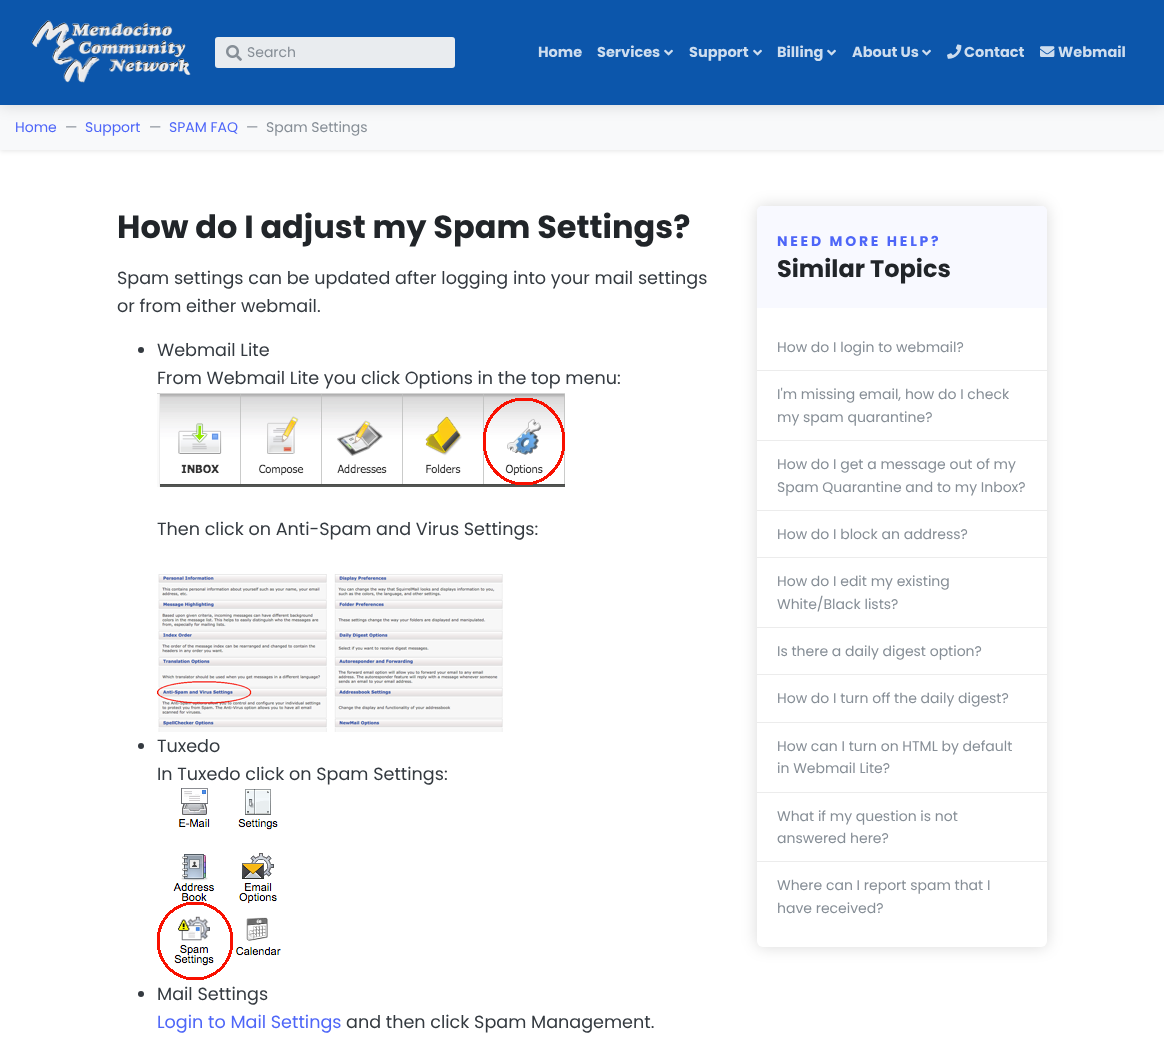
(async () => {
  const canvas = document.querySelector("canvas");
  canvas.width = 1164;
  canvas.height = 1037;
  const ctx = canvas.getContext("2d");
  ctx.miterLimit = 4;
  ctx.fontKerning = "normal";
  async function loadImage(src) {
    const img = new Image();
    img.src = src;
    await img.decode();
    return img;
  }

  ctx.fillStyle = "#ffffff";
  ctx.fillRect(0, 0, 1164, 1037);
  ctx.fillStyle = "rgba(0, 0, 0, 0.1)";
  ctx.filter = "blur(2.5px)";
  ctx.beginPath();
  ctx.rect(0, 105, 1164, 46);
  ctx.fill();
  ctx.filter = "none";
  ctx.fillStyle = "#f8f9fa";
  ctx.fillRect(0, 105, 1164, 45);
  ctx.fillStyle = "rgba(0, 0, 0, 0.15)";
  ctx.filter = "blur(8px)";
  ctx.beginPath();
  ctx.rect(0, 0, 1164, 105);
  ctx.fill();
  ctx.filter = "none";
  ctx.fillStyle = "#0c56ab";
  ctx.fillRect(0, 0, 1164, 105);
  ctx.drawImage(await loadImage("img/1.png"), 31, 20, 160, 63);
  ctx.fillStyle = "#e9ecef";
  ctx.beginPath();
  ctx.roundRect(215, 37, 240, 31, 3);
  ctx.fill();
  ctx.drawImage(await loadImage("img/2.png"), 226, 45, 16, 16);
  ctx.drawImage(await loadImage("img/3.png"), 664, 49, 9, 7);
  ctx.drawImage(await loadImage("img/3.png"), 753, 49, 9, 7);
  ctx.drawImage(await loadImage("img/3.png"), 827, 49, 9, 7);
  ctx.drawImage(await loadImage("img/3.png"), 922, 49, 9, 7);
  ctx.drawImage(await loadImage("img/4.png"), 947, 44, 15, 15);
  ctx.drawImage(await loadImage("img/5.png"), 1040, 46, 15, 11);
  ctx.fillStyle = "#343a40";
  ctx.beginPath();
  ctx.arc(141, 350, 3, 0, Math.PI * 2);
  ctx.fill();
  ctx.drawImage(await loadImage("img/6.png"), 157, 393, 408, 94);
  ctx.drawImage(await loadImage("img/7.png"), 157, 574, 346, 158);
  ctx.beginPath();
  ctx.arc(141, 746, 3, 0, Math.PI * 2);
  ctx.fill();
  ctx.drawImage(await loadImage("img/8.png"), 157, 788, 124, 192);
  ctx.beginPath();
  ctx.arc(141, 994, 3, 0, Math.PI * 2);
  ctx.fill();
  ctx.fillStyle = "rgba(0, 0, 0, 0.15)";
  ctx.filter = "blur(8px)";
  ctx.beginPath();
  ctx.roundRect(757, 206, 290, 741, 6);
  ctx.fill();
  ctx.filter = "none";
  ctx.fillStyle = "#ffffff";
  ctx.beginPath();
  ctx.roundRect(757, 206, 290, 741, 6);
  ctx.fill();
  ctx.fillStyle = "#f8f9ff";
  ctx.beginPath();
  ctx.roundRect(757, 206, 290, 102, [5, 5, 0, 0]);
  ctx.fill();
  for (const [x, y, w, h, color] of [
    [757, 370, 290, 1, "#ececec"],
    [757, 440, 290, 1, "#ececec"],
    [757, 510, 290, 1, "#ececec"],
    [757, 557, 290, 1, "#ececec"],
    [757, 627, 290, 1, "#ececec"],
    [757, 674, 290, 1, "#ececec"],
    [757, 722, 290, 1, "#ececec"],
    [757, 792, 290, 1, "#ececec"],
    [757, 861, 290, 1, "#ececec"],
  ]) {
    ctx.fillStyle = color;
    ctx.fillRect(x, y, w, h);
  }
  ctx.font = "14px Poppins";
  ctx.fillStyle = "#868e96";
  ctx.fillText("Search", 247, 57);
  ctx.font = "bold 14.5px Poppins";
  ctx.fillStyle = "#ceddee";
  for (const [text, x, y] of [
    ["Home", 538, 57],
    ["Services", 597, 57],
    ["Support", 689, 57],
    ["Billing", 777, 57],
    ["About Us", 852, 57],
    ["Contact", 964, 57],
    ["Webmail", 1058, 57],
  ]) {
    ctx.fillText(text, x, y);
  }
  ctx.font = "14px Poppins";
  ctx.fillStyle = "#4e66f8";
  ctx.fillText("Home", 15, 132);
  ctx.fillStyle = "#868e96";
  ctx.fillText("—", 65, 132);
  ctx.fillStyle = "#4e66f8";
  ctx.fillText("Support", 85, 132);
  ctx.fillStyle = "#868e96";
  ctx.fillText("—", 149, 132);
  ctx.fillStyle = "#4e66f8";
  ctx.fillText("SPAM FAQ", 169, 132);
  ctx.fillStyle = "#868e96";
  ctx.fillText("—", 246, 132);
  ctx.fillText("Spam Settings", 266, 132);
  ctx.font = "bold 32px Poppins";
  ctx.fillStyle = "#212529";
  ctx.fillText("How do I adjust my Spam Settings?", 117, 238);
  ctx.font = "17.6px Poppins";
  ctx.fillStyle = "#343a40";
  for (const [text, x, y] of [
    ["Spam settings can be updated after logging into your mail settings", 117, 284],
    ["or from either webmail.", 117, 312],
    ["Webmail Lite", 157, 356],
    ["From Webmail Lite you click Options in the top menu:", 157, 384],
    ["Then click on Anti-Spam and Virus Settings:", 157, 535],
    ["Tuxedo", 157, 752],
    ["In Tuxedo click on Spam Settings:", 157, 780],
    ["Mail Settings", 157, 1000],
  ]) {
    ctx.fillText(text, x, y);
  }
  ctx.fillStyle = "#4e66f8";
  ctx.fillText("Login to Mail Settings", 157, 1028);
  ctx.fillStyle = "#343a40";
  ctx.fillText("and then click Spam Management.", 346, 1028);
  ctx.letterSpacing = "2.75px";
  ctx.font = "bold 14px Poppins";
  ctx.fillStyle = "#4e66f8";
  ctx.fillText("NEED MORE HELP?", 777, 246);
  ctx.letterSpacing = "0px";
  ctx.font = "bold 24px Poppins";
  ctx.fillStyle = "#212529";
  ctx.fillText("Similar Topics", 777, 277);
  ctx.font = "14px Poppins";
  ctx.fillStyle = "#868e96";
  for (const [text, x, y] of [
    ["How do I login to webmail?", 777, 352],
    ["I'm missing email, how do I check", 777, 399],
    ["my spam quarantine?", 777, 422],
    ["How do I get a message out of my", 777, 469],
    ["Spam Quarantine and to my Inbox?", 777, 492],
    ["How do I block an address?", 777, 539],
    ["How do I edit my existing", 777, 586],
    ["White/Black lists?", 777, 609],
    ["Is there a daily digest option?", 777, 656],
    ["How do I turn off the daily digest?", 777, 703],
    ["How can I turn on HTML by default", 777, 751],
    ["in Webmail Lite?", 777, 773],
    ["What if my question is not", 777, 821],
    ["answered here?", 777, 843],
    ["Where can I report spam that I", 777, 890],
    ["have received?", 777, 913],
  ]) {
    ctx.fillText(text, x, y);
  }
})();
